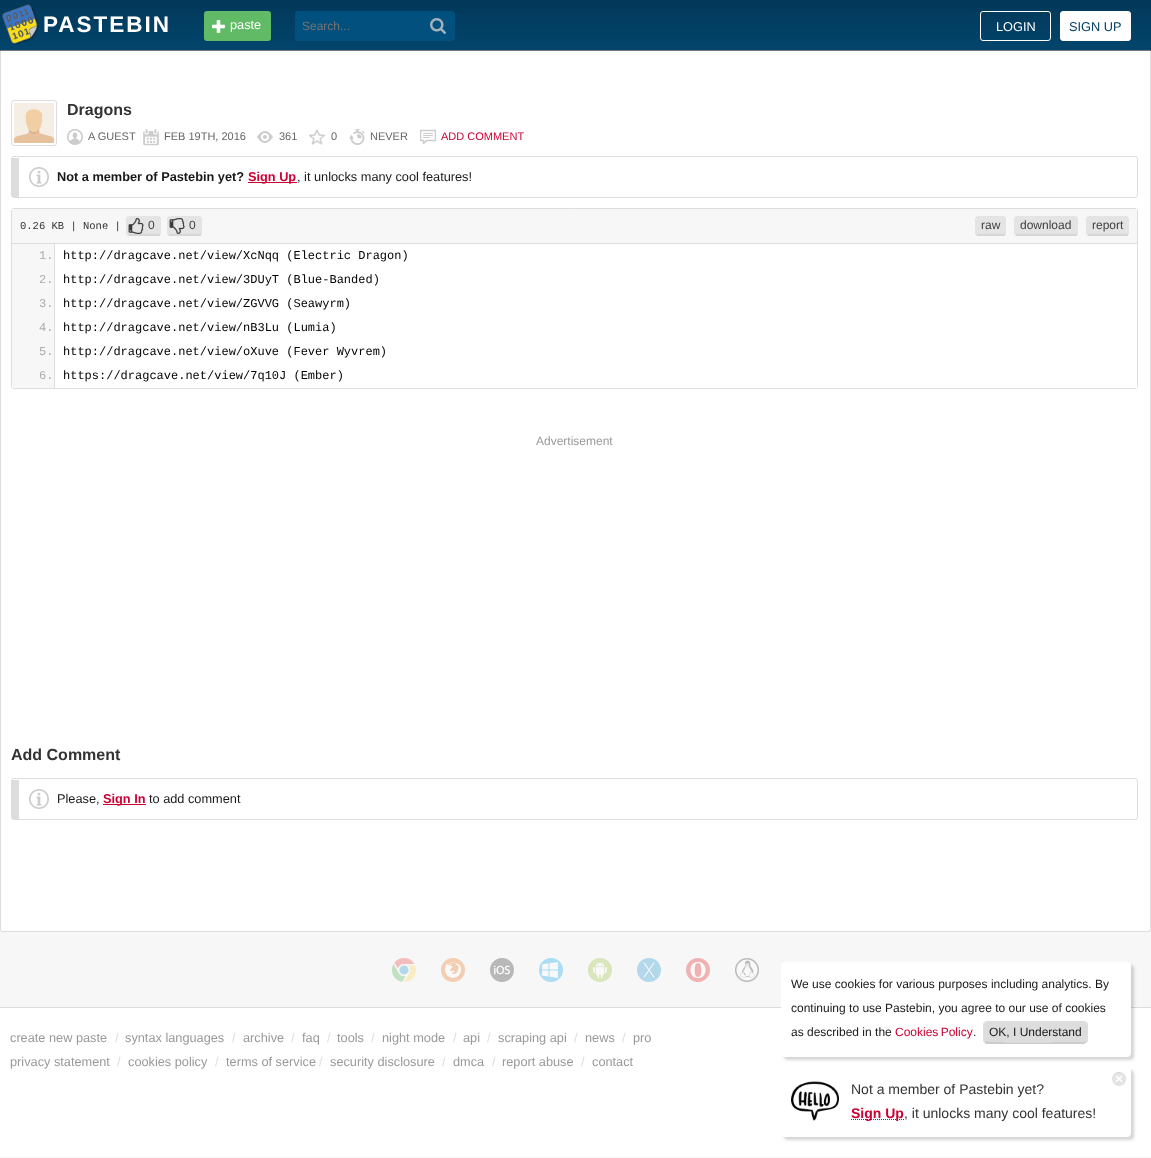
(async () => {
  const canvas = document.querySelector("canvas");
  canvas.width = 1151;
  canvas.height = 1158;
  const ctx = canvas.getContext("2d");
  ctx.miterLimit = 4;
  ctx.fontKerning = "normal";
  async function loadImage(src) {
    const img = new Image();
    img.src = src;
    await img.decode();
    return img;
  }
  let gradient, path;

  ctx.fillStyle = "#f7f7f7";
  ctx.fillRect(0, 0, 1151, 1158);
  ctx.fillStyle = "#ffffff";
  ctx.beginPath();
  ctx.roundRect(0, 0, 1151, 932, [0, 0, 3, 3]);
  ctx.fill();
  ctx.fillStyle = "#dddddd";
  path = new Path2D("M0 0H1151V929C1151 931 1150 932 1148 932H3C1 932 0 931 0 929ZM1 0H1150V929C1150 930 1149 931 1148 931H3C2 931 1 930 1 929Z");
  ctx.fill(path, "evenodd");
  ctx.fillStyle = "rgba(0, 0, 0, 0.52)";
  ctx.filter = "blur(0.5px)";
  ctx.beginPath();
  ctx.rect(0, 1, 1151, 50);
  ctx.fill();
  ctx.filter = "none";
  gradient = ctx.createLinearGradient(576, 0, 576, 50);
  gradient.addColorStop(0, "#023859");
  gradient.addColorStop(1, "#02456c");
  ctx.fillStyle = gradient;
  ctx.fillRect(0, 0, 1151, 50);
  ctx.drawImage(await loadImage("img/1.png"), 2, 4, 37, 41);
  ctx.fillStyle = "#61ba65";
  ctx.beginPath();
  ctx.roundRect(204, 11, 67, 30, 3);
  ctx.fill();
  ctx.drawImage(await loadImage("img/2.png"), 212, 20, 13, 13);
  ctx.fillStyle = "#02507d";
  ctx.beginPath();
  ctx.roundRect(295, 11, 160, 30, 3);
  ctx.fill();
  ctx.drawImage(await loadImage("img/3.png"), 430, 18, 16, 16);
  ctx.beginPath();
  ctx.roundRect(980.5, 11.5, 70, 29, 2.5);
  ctx.strokeStyle = "#ffffff";
  ctx.stroke();
  ctx.fillStyle = "#ffffff";
  ctx.beginPath();
  ctx.roundRect(1060.5, 11.5, 70, 29, 2.5);
  ctx.fill();
  ctx.stroke();
  ctx.beginPath();
  ctx.roundRect(11.5, 100.5, 45, 45, 2.5);
  ctx.strokeStyle = "#dddddd";
  ctx.stroke();
  ctx.drawImage(await loadImage("img/4.png"), 14, 103, 40, 40);
  ctx.drawImage(await loadImage("img/5.png"), 67, 129, 16, 16);
  ctx.drawImage(await loadImage("img/6.png"), 143, 129, 16, 17);
  ctx.drawImage(await loadImage("img/7.png"), 257, 131, 16, 12);
  ctx.drawImage(await loadImage("img/8.png"), 309, 129, 17, 16);
  ctx.drawImage(await loadImage("img/9.png"), 349, 129, 16, 16);
  ctx.drawImage(await loadImage("img/10.png"), 420, 129, 16, 16);
  ctx.drawImage(await loadImage("img/11.png"), 29, 167, 20, 20);
  ctx.beginPath();
  ctx.roundRect(11.5, 156.5, 1126, 41, 2.5);
  ctx.stroke();
  ctx.fillStyle = "#dddddd";
  ctx.fillRect(12, 158, 7, 39);
  ctx.fillStyle = "#cc0033";
  ctx.fillRect(248, 182, 49, 1);
  ctx.beginPath();
  ctx.roundRect(11.5, 208.5, 1126, 180, 2.5);
  ctx.stroke();
  ctx.fillStyle = "#f7f7f7";
  ctx.fillRect(12, 209, 1125, 34);
  ctx.fillStyle = "#dddddd";
  ctx.fillRect(12, 243, 1125, 1);
  ctx.fillStyle = "#e4e4e4";
  ctx.beginPath();
  ctx.roundRect(126, 216, 35, 20, 3);
  ctx.fill();
  ctx.drawImage(await loadImage("img/12.png"), 128, 218, 16, 16);
  ctx.fillStyle = "#d7d7d7";
  ctx.fillRect(128, 234, 32, 2);
  ctx.fillStyle = "#e4e4e4";
  ctx.beginPath();
  ctx.roundRect(167, 216, 35, 20, 3);
  ctx.fill();
  ctx.drawImage(await loadImage("img/13.png"), 169, 218, 17, 16);
  ctx.fillStyle = "#d7d7d7";
  ctx.fillRect(169, 234, 32, 2);
  ctx.fillStyle = "#e4e4e4";
  ctx.beginPath();
  ctx.roundRect(975, 216, 31, 20, 3);
  ctx.fill();
  ctx.fillStyle = "#d7d7d7";
  ctx.fillRect(977, 234, 28, 2);
  ctx.fillStyle = "#e4e4e4";
  ctx.beginPath();
  ctx.roundRect(1014, 216, 64, 20, 3);
  ctx.fill();
  ctx.fillStyle = "#d7d7d7";
  ctx.fillRect(1016, 234, 61, 2);
  ctx.fillStyle = "#e4e4e4";
  ctx.beginPath();
  ctx.roundRect(1086, 216, 43, 20, 3);
  ctx.fill();
  for (const [x, y, w, h, color] of [
    [1088, 234, 40, 2, "#d7d7d7"],
    [12, 244, 42, 144, "#f7f7f7"],
    [54, 244, 1, 144, "#dddddd"],
    [1135, 386, 2, 2, "#ffffff"],
  ]) {
    ctx.fillStyle = color;
    ctx.fillRect(x, y, w, h);
  }
  ctx.drawImage(await loadImage("img/11.png"), 29, 789, 20, 20);
  ctx.beginPath();
  ctx.roundRect(11.5, 778.5, 1126, 41, 2.5);
  ctx.stroke();
  ctx.fillStyle = "#dddddd";
  ctx.fillRect(12, 780, 7, 39);
  ctx.fillStyle = "#cc0033";
  ctx.fillRect(103, 804, 43, 1);
  ctx.drawImage(await loadImage("img/14.png"), 392, 958, 24, 24);
  ctx.drawImage(await loadImage("img/15.png"), 441, 958, 24, 24);
  ctx.drawImage(await loadImage("img/16.png"), 490, 958, 24, 24);
  ctx.drawImage(await loadImage("img/17.png"), 539, 958, 24, 24);
  ctx.drawImage(await loadImage("img/18.png"), 588, 958, 24, 24);
  ctx.drawImage(await loadImage("img/19.png"), 637, 958, 24, 24);
  ctx.drawImage(await loadImage("img/20.png"), 686, 958, 24, 24);
  ctx.drawImage(await loadImage("img/21.png"), 735, 958, 24, 24);
  ctx.fillStyle = "#ffffff";
  ctx.fillRect(0, 1008, 1151, 149);
  ctx.fillStyle = "#dddddd";
  ctx.fillRect(0, 1007, 1151, 1);
  ctx.fillStyle = "rgba(0, 0, 0, 0.17)";
  ctx.filter = "blur(1.5px)";
  ctx.beginPath();
  ctx.roundRect(784, 965, 350, 95, 4);
  ctx.fill();
  ctx.filter = "none";
  ctx.fillStyle = "#ffffff";
  ctx.beginPath();
  ctx.roundRect(781, 962, 350, 95, 4);
  ctx.fill();
  ctx.fillStyle = "#dddddd";
  path = new Path2D("M987 1022H1084C1086 1022 1087 1023 1087 1025V1040C1087 1041 1086 1042 1084 1042H987C985 1042 984 1041 984 1040V1025C984 1023 985 1022 987 1022Z");
  ctx.fill(path);
  path = new Path2D("M987 1021L984 1022L985 1023L987 1022H1084L1086 1023L1087 1022L1084 1021Z");
  ctx.fill(path);
  path = new Path2D("M1088 1040V1025C1088 1024 1087.5 1023 1087 1022L1086 1023C1087.5 1024 1087 1030.5 1087 1032.5C1087 1034 1087.5 1040 1086.5 1041L1087 1042.5C1087.5 1041.5 1088 1041 1088 1040Z");
  ctx.fill(path);
  ctx.fillStyle = "#cccccc";
  path = new Path2D("M987 1044H1084L1087 1042V1041L1084 1042H1068C1059 1042 987 1043 985 1041L984 1042C985 1043 986 1044 987 1044Z");
  ctx.fill(path);
  ctx.fillStyle = "#dddddd";
  path = new Path2D("M983 1025V1040C983 1041 983.5 1041.5 984 1042.5L984.5 1041C983.5 1040 984 1034 984 1032.5C984 1030.5 983.5 1024 985 1023L984 1022C983.5 1023 983 1024 983 1025Z");
  ctx.fill(path);
  ctx.fillStyle = "rgba(0, 0, 0, 0.17)";
  ctx.filter = "blur(1.5px)";
  ctx.beginPath();
  ctx.roundRect(784, 1070, 350, 70, 4);
  ctx.fill();
  ctx.filter = "none";
  ctx.fillStyle = "#ffffff";
  ctx.beginPath();
  ctx.roundRect(781, 1067, 350, 70, 4);
  ctx.fill();
  ctx.drawImage(await loadImage("img/22.png"), 1112, 1072, 14, 14);
  ctx.drawImage(await loadImage("img/23.png"), 791, 1081, 48, 40);
  path = new Path2D("M851 1119.5H904");
  ctx.strokeStyle = "#cc0033";
  ctx.setLineDash([1, 1]);
  ctx.stroke(path);
  ctx.letterSpacing = "2px";
  ctx.font = "bold 22.5px Liberation Sans";
  ctx.fillText("PASTEBIN", 43, 32);
  ctx.letterSpacing = "0px";
  ctx.font = "12.75px Liberation Sans";
  ctx.fillText("paste", 230, 29);
  ctx.font = "12px Liberation Sans";
  ctx.fillStyle = "#757575";
  ctx.fillText("Search...", 302, 30);
  ctx.font = "12.75px Liberation Sans";
  ctx.fillStyle = "#ffffff";
  ctx.fillText("LOGIN", 996, 31);
  ctx.fillStyle = "#023f63";
  ctx.fillText("SIGN UP", 1069, 31);
  ctx.font = "bold 16px Liberation Sans";
  ctx.fillStyle = "#333333";
  ctx.fillText("Dragons", 67, 115);
  ctx.font = "11px Liberation Sans";
  ctx.fillStyle = "#666666";
  for (const [text, x, y] of [
    ["A GUEST", 88, 140],
    ["FEB 19TH, 2016", 164, 140],
    ["361", 279, 140],
    ["0", 331, 140],
    ["NEVER", 370, 140],
  ]) {
    ctx.fillText(text, x, y);
  }
  ctx.fillStyle = "#cc0033";
  ctx.fillText("ADD COMMENT", 441, 140);
  ctx.font = "bold 12.75px Liberation Sans";
  ctx.fillStyle = "#181818";
  ctx.fillText("Not a member of Pastebin yet?", 57, 181);
  ctx.fillStyle = "#cc0033";
  ctx.fillText("Sign Up", 248, 181);
  ctx.font = "12.75px Liberation Sans";
  ctx.fillStyle = "#181818";
  ctx.fillText(", it unlocks many cool features!", 297, 181);
  ctx.font = "10.5px Liberation Mono";
  ctx.fillStyle = "#333333";
  ctx.fillText("0.26 KB | None |", 20, 229);
  ctx.font = "12px Liberation Sans";
  ctx.fillStyle = "#3e3e3e";
  for (const [text, x, y] of [
    ["0", 148, 229],
    ["0", 189, 229],
    ["raw", 981, 229],
    ["download", 1020, 229],
    ["report", 1092, 229],
  ]) {
    ctx.fillText(text, x, y);
  }
  ctx.font = "12px Liberation Mono";
  ctx.fillStyle = "#acacac";
  ctx.fillText("1.", 39, 259);
  ctx.fillStyle = "#000000";
  ctx.fillText("http://dragcave.net/view/XcNqq (Electric Dragon)", 63, 259);
  ctx.fillStyle = "#acacac";
  ctx.fillText("2.", 39, 283);
  ctx.fillStyle = "#000000";
  ctx.fillText("http://dragcave.net/view/3DUyT (Blue-Banded)", 63, 283);
  ctx.fillStyle = "#acacac";
  ctx.fillText("3.", 39, 307);
  ctx.fillStyle = "#000000";
  ctx.fillText("http://dragcave.net/view/ZGVVG (Seawyrm)", 63, 307);
  ctx.fillStyle = "#acacac";
  ctx.fillText("4.", 39, 331);
  ctx.fillStyle = "#000000";
  ctx.fillText("http://dragcave.net/view/nB3Lu (Lumia)", 63, 331);
  ctx.fillStyle = "#acacac";
  ctx.fillText("5.", 39, 355);
  ctx.fillStyle = "#000000";
  ctx.fillText("http://dragcave.net/view/oXuve (Fever Wyvrem)", 63, 355);
  ctx.fillStyle = "#acacac";
  ctx.fillText("6.", 39, 379);
  ctx.fillStyle = "#000000";
  ctx.fillText("https://dragcave.net/view/7q10J (Ember)", 63, 379);
  ctx.font = "12px Liberation Sans";
  ctx.fillStyle = "#999999";
  ctx.fillText("Advertisement", 536, 445);
  ctx.font = "bold 16px Liberation Sans";
  ctx.fillStyle = "#333333";
  ctx.fillText("Add Comment", 11, 760);
  ctx.font = "12.75px Liberation Sans";
  ctx.fillStyle = "#181818";
  ctx.fillText("Please,", 57, 803);
  ctx.font = "bold 12.75px Liberation Sans";
  ctx.fillStyle = "#cc0033";
  ctx.fillText("Sign In", 103, 803);
  ctx.font = "12.75px Liberation Sans";
  ctx.fillStyle = "#181818";
  ctx.fillText("to add comment", 149, 803);
  ctx.fillStyle = "#999999";
  ctx.fillText("create new paste", 10, 1042);
  ctx.fillStyle = "#dddddd";
  ctx.fillText("/", 115, 1042);
  ctx.fillStyle = "#999999";
  ctx.fillText("syntax languages", 125, 1042);
  ctx.fillStyle = "#dddddd";
  ctx.fillText("/", 232, 1042);
  ctx.fillStyle = "#999999";
  ctx.fillText("archive", 243, 1042);
  ctx.fillStyle = "#dddddd";
  ctx.fillText("/", 291, 1042);
  ctx.fillStyle = "#999999";
  ctx.fillText("faq", 302, 1042);
  ctx.fillStyle = "#dddddd";
  ctx.fillText("/", 327, 1042);
  ctx.fillStyle = "#999999";
  ctx.fillText("tools", 337, 1042);
  ctx.fillStyle = "#dddddd";
  ctx.fillText("/", 371, 1042);
  ctx.fillStyle = "#999999";
  ctx.fillText("night mode", 382, 1042);
  ctx.fillStyle = "#dddddd";
  ctx.fillText("/", 453, 1042);
  ctx.fillStyle = "#999999";
  ctx.fillText("api", 463, 1042);
  ctx.fillStyle = "#dddddd";
  ctx.fillText("/", 487, 1042);
  ctx.fillStyle = "#999999";
  ctx.fillText("scraping api", 498, 1042);
  ctx.fillStyle = "#dddddd";
  ctx.fillText("/", 574, 1042);
  ctx.fillStyle = "#999999";
  ctx.fillText("news", 585, 1042);
  ctx.fillStyle = "#dddddd";
  ctx.fillText("/", 622, 1042);
  ctx.fillStyle = "#999999";
  ctx.fillText("pro", 633, 1042);
  ctx.fillText("privacy statement", 10, 1066);
  ctx.fillStyle = "#dddddd";
  ctx.fillText("/", 117, 1066);
  ctx.fillStyle = "#999999";
  ctx.fillText("cookies policy", 128, 1066);
  ctx.fillStyle = "#dddddd";
  ctx.fillText("/", 215, 1066);
  ctx.fillStyle = "#999999";
  ctx.fillText("terms of service", 226, 1066);
  ctx.fillStyle = "#dddddd";
  ctx.fillText("/", 319, 1066);
  ctx.fillStyle = "#999999";
  ctx.fillText("security disclosure", 330, 1066);
  ctx.fillStyle = "#dddddd";
  ctx.fillText("/", 442, 1066);
  ctx.fillStyle = "#999999";
  ctx.fillText("dmca", 453, 1066);
  ctx.fillStyle = "#dddddd";
  ctx.fillText("/", 492, 1066);
  ctx.fillStyle = "#999999";
  ctx.fillText("report abuse", 502, 1066);
  ctx.fillStyle = "#dddddd";
  ctx.fillText("/", 581, 1066);
  ctx.fillStyle = "#999999";
  ctx.fillText("contact", 592, 1066);
  ctx.font = "12px Liberation Sans";
  ctx.fillStyle = "#181818";
  for (const [text, x, y] of [
    ["We use cookies for various purposes including analytics. By", 791, 988],
    ["continuing to use Pastebin, you agree to our use of cookies", 791, 1012],
    ["as described in the", 791, 1036],
  ]) {
    ctx.fillText(text, x, y);
  }
  ctx.wordSpacing = "-1px";
  ctx.fillStyle = "#cc0033";
  ctx.fillText("Cookies Policy", 895, 1036);
  ctx.wordSpacing = "0px";
  ctx.fillStyle = "#181818";
  ctx.fillText(".", 973, 1036);
  ctx.fillText("OK, I Understand", 989, 1036);
  ctx.font = "14px Liberation Sans";
  ctx.fillStyle = "#333333";
  ctx.fillText("Not a member of Pastebin yet?", 851, 1094);
  ctx.font = "bold 14px Liberation Sans";
  ctx.fillStyle = "#cc0033";
  ctx.fillText("Sign Up", 851, 1118);
  ctx.font = "14px Liberation Sans";
  ctx.fillStyle = "#333333";
  ctx.fillText(", it unlocks many cool features!", 904, 1118);
})();
